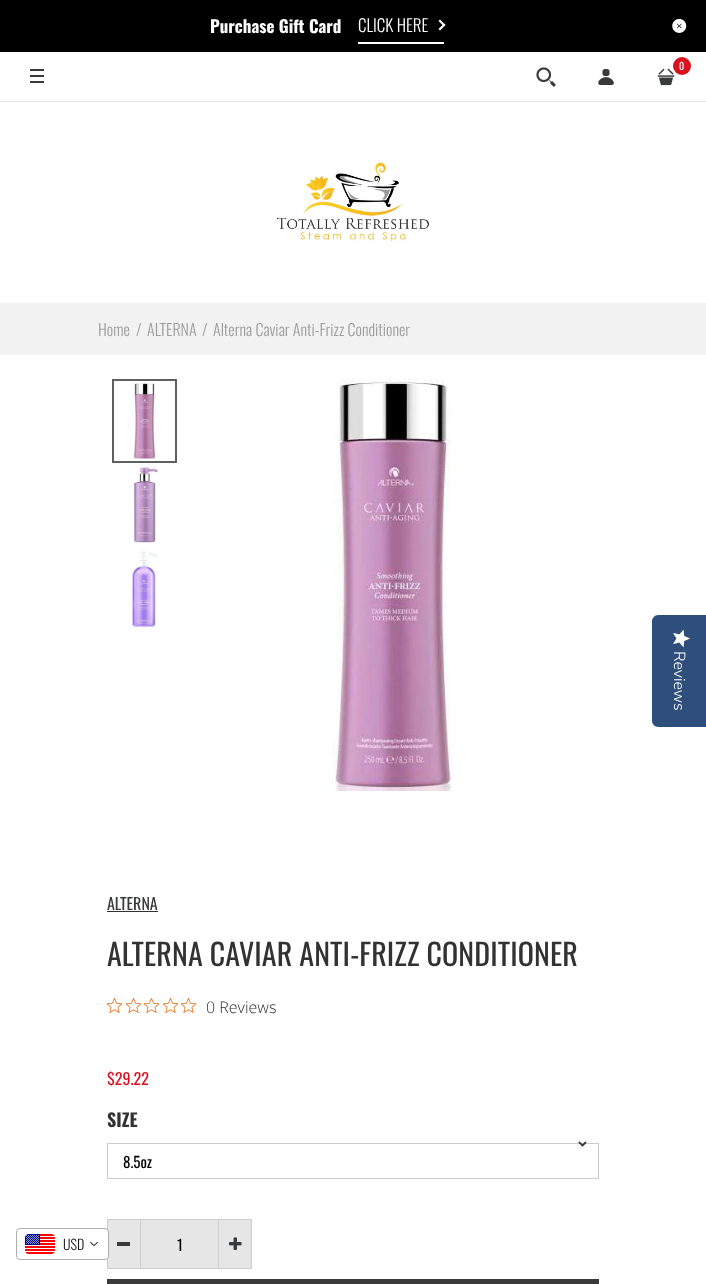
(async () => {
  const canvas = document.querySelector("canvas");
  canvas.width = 706;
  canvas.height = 1284;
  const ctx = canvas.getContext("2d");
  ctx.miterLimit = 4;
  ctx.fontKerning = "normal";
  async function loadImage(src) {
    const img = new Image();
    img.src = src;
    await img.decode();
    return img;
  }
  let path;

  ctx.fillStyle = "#ffffff";
  ctx.fillRect(0, 0, 706, 1284);
  ctx.fillStyle = "#000000";
  ctx.fillRect(0, 0, 706, 52);
  ctx.fillStyle = "#ffffff";
  ctx.fillRect(358, 42, 86, 2);
  path = new Path2D("M438.5 21L440 19.5L445.5 25L444 26.5Z");
  ctx.fill(path);
  path = new Path2D("M438.5 29L444 23.5L445.5 25L440 30.5Z");
  ctx.fill(path);
  ctx.drawImage(await loadImage("img/1.png"), 672, 18, 15, 15);
  ctx.fillStyle = "#e7e7e7";
  ctx.fillRect(0, 101, 706, 1);
  ctx.drawImage(await loadImage("img/2.png"), 657, 68, 18, 18);
  ctx.fillStyle = "#d9121f";
  ctx.beginPath();
  ctx.arc(682, 66, 9, 0, Math.PI * 2);
  ctx.fill();
  for (const [x, y, w, h, color] of [
    [30, 75, 14, 2, "#393a3b"],
    [30, 69, 14, 2, "#393a3b"],
    [30, 81, 14, 2, "#393a3b"],
  ]) {
    ctx.fillStyle = color;
    ctx.fillRect(x, y, w, h);
  }
  ctx.drawImage(await loadImage("img/3.png"), 536, 67, 20, 20);
  ctx.drawImage(await loadImage("img/4.png"), 598, 69, 16, 16);
  ctx.drawImage(await loadImage("img/5.png"), 277, 162, 153, 80);
  ctx.fillStyle = "#f2f2f2";
  ctx.fillRect(0, 303, 706, 52);
  ctx.strokeStyle = "#5f6062";
  ctx.lineWidth = 2;
  ctx.strokeRect(113, 380, 63, 82);
  ctx.drawImage(await loadImage("img/6.png"), 133, 383, 23, 76);
  ctx.drawImage(await loadImage("img/7.png"), 133, 467, 25, 76);
  ctx.drawImage(await loadImage("img/8.png"), 131, 551, 27, 76);
  ctx.drawImage(await loadImage("img/9.png"), 332, 379, 119, 412);
  ctx.fillStyle = "#333232";
  ctx.fillRect(107, 911, 51, 1);
  ctx.drawImage(await loadImage("img/10.png"), 107, 998, 15, 15);
  ctx.drawImage(await loadImage("img/10.png"), 126, 998, 15, 15);
  ctx.drawImage(await loadImage("img/10.png"), 144, 998, 15, 15);
  ctx.drawImage(await loadImage("img/10.png"), 163, 998, 15, 15);
  ctx.drawImage(await loadImage("img/10.png"), 181, 998, 15, 15);
  ctx.strokeStyle = "#cccccc";
  ctx.lineWidth = 1;
  ctx.strokeRect(107.5, 1143.5, 491, 35);
  ctx.drawImage(await loadImage("img/11.png"), 578, 1141, 9, 6);
  ctx.fillStyle = "#e6e6e6";
  ctx.beginPath();
  ctx.rect(107.5, 1219.5, 144, 49);
  ctx.fill();
  ctx.stroke();
  for (const [x, y, w, h, color] of [
    [140, 1219, 1, 50, "#cfcfcf"],
    [117, 1242, 13, 4, "#393a3b"],
    [218, 1219, 1, 50, "#cfcfcf"],
  ]) {
    ctx.fillStyle = color;
    ctx.fillRect(x, y, w, h);
  }
  ctx.drawImage(await loadImage("img/12.png"), 229, 1237, 13, 13);
  ctx.fillStyle = "#3a3a3a";
  ctx.fillRect(107, 1279, 492, 5);
  ctx.fillStyle = "#2e4f7c";
  path = new Path2D("M706 615V727H658C655 727 652 724 652 721V621C652 618 655 615 658 615Z");
  ctx.fill(path);
  ctx.drawImage(await loadImage("img/13.png"), 673, 629, 17, 19);
  ctx.fillStyle = "#ffffff";
  ctx.beginPath();
  ctx.roundRect(16.5, 1228.5, 92, 31, 3.5);
  ctx.fill();
  ctx.strokeStyle = "#aeaeae";
  ctx.stroke();
  ctx.drawImage(await loadImage("img/14.png"), 25, 1234, 30, 20);
  ctx.drawImage(await loadImage("img/15.png"), 90, 1242, 8, 4);
  ctx.font = "bold 17px Oswald";
  ctx.fillText("Purchase Gift Card", 210, 33);
  ctx.font = "300 17px Oswald";
  ctx.fillText("CLICK HERE", 358, 32);
  ctx.font = "10px Oswald";
  ctx.fillText("0", 679, 70);
  ctx.font = "300 16px Oswald";
  ctx.fillStyle = "#9e9e9e";
  for (const [text, x, y] of [
    ["Home", 98, 336],
    ["/", 136, 336],
    ["ALTERNA", 147, 336],
    ["/", 202, 336],
    ["Alterna Caviar Anti-Frizz Conditioner", 213, 336],
  ]) {
    ctx.fillText(text, x, y);
  }
  ctx.font = "16px Oswald";
  ctx.fillStyle = "#393a3b";
  ctx.fillText("ALTERNA", 107, 910);
  ctx.letterSpacing = "0.1px";
  ctx.font = "30px Oswald";
  ctx.fillStyle = "#333232";
  ctx.fillText("ALTERNA CAVIAR ANTI-FRIZZ CONDITIONER", 107, 966);
  ctx.letterSpacing = "0px";
  ctx.font = "300 16px Open Sans";
  ctx.fillStyle = "#2c2c2c";
  ctx.fillText("0 Reviews", 206, 1013);
  ctx.font = "16px Oswald";
  ctx.fillStyle = "#d9121f";
  ctx.fillText("$29.22", 107, 1085);
  ctx.font = "bold 18px Oswald";
  ctx.fillStyle = "#333232";
  ctx.fillText("SIZE", 107, 1127);
  ctx.font = "15px Oswald";
  ctx.fillStyle = "#000000";
  ctx.fillText("8.5oz", 123, 1168);
  ctx.fillText("1", 177, 1251);
  ctx.font = "300 16px Nunito Sans";
  ctx.fillStyle = "#ffffff";
  ctx.save();
  ctx.translate(674, 651);
  ctx.rotate(90 * Math.PI / 180);
  ctx.fillText("Reviews", 0, 0);
  ctx.restore();
  ctx.font = "300 14px Oswald";
  ctx.fillStyle = "#111111";
  ctx.fillText("USD", 63, 1250);
})();
